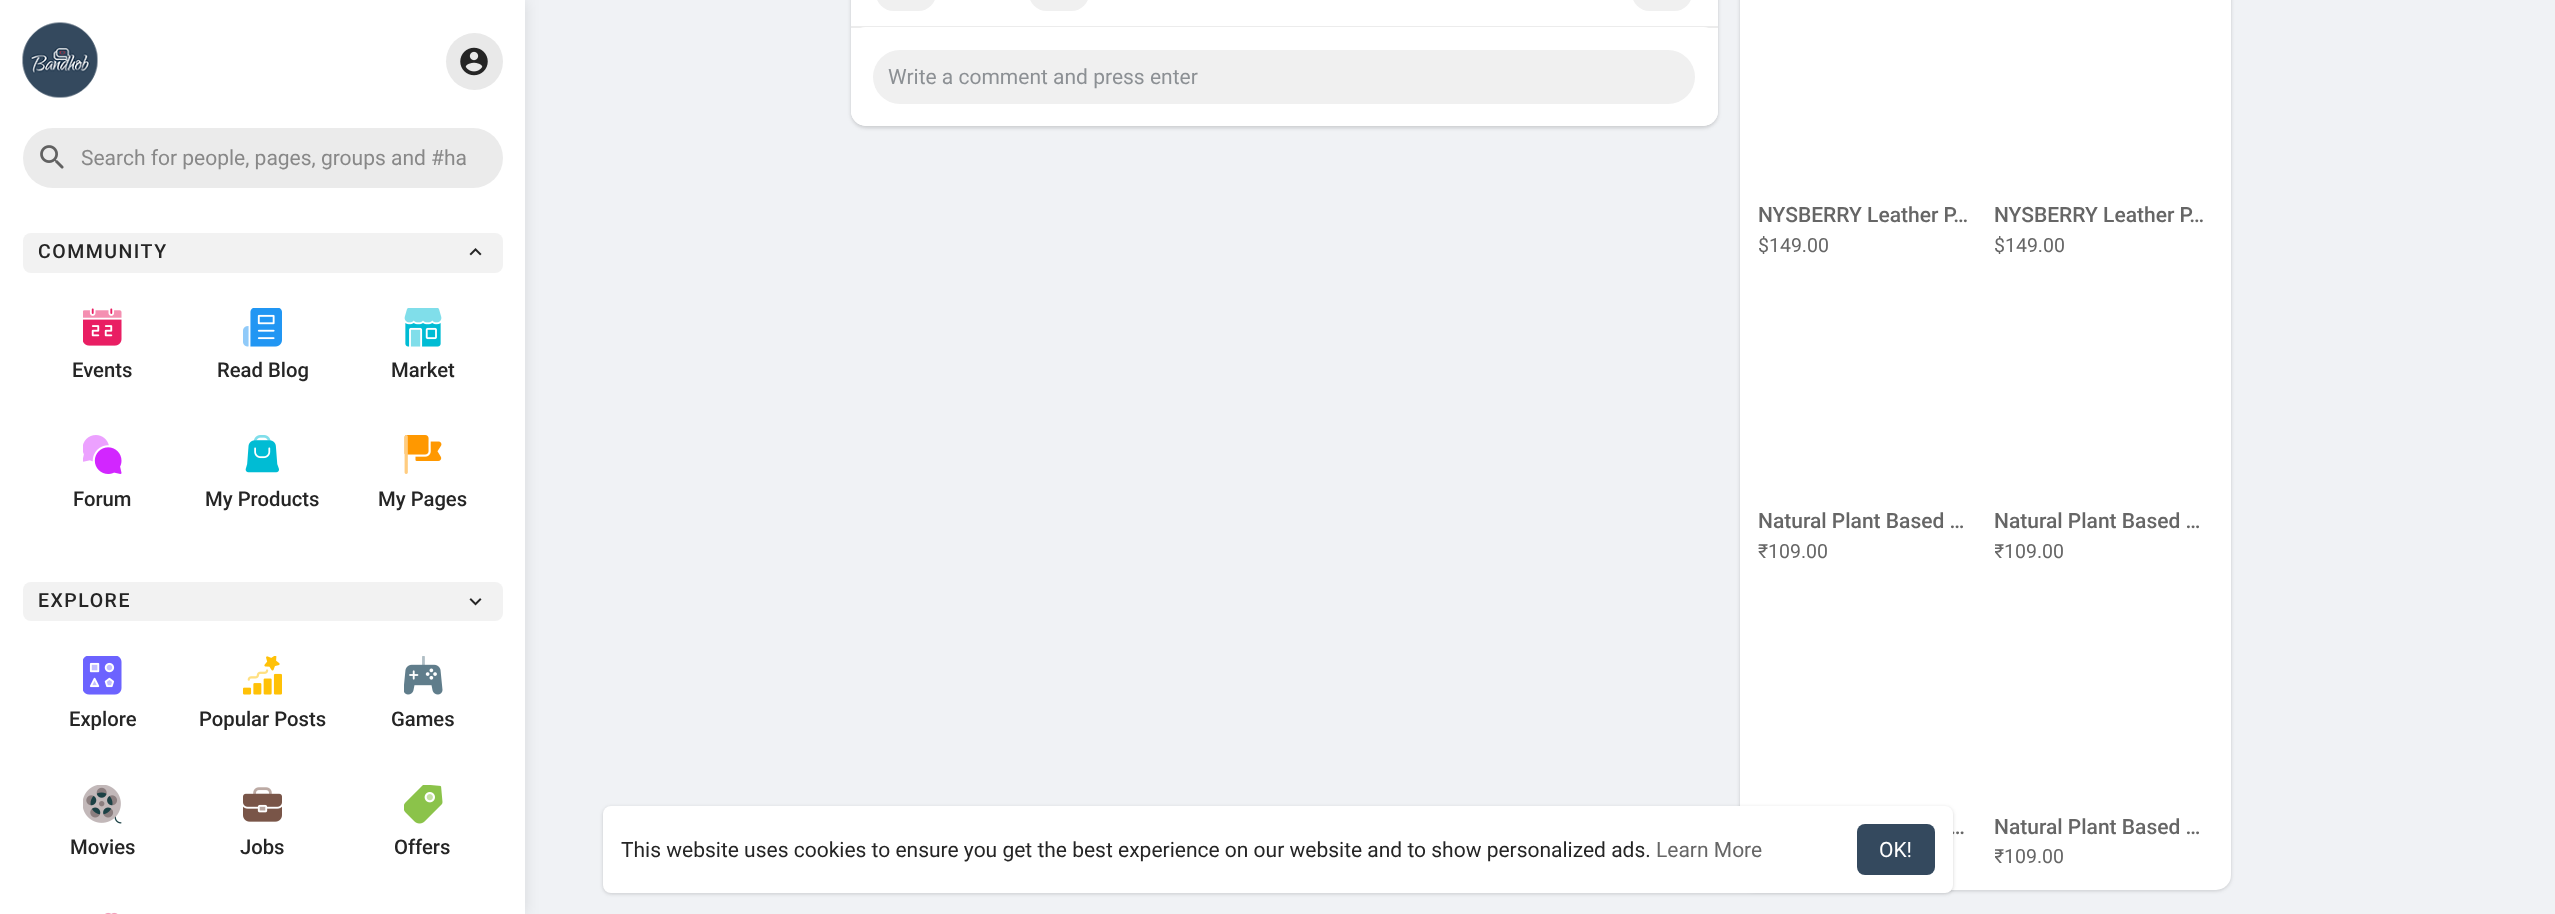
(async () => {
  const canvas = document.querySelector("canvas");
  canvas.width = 2555;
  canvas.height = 914;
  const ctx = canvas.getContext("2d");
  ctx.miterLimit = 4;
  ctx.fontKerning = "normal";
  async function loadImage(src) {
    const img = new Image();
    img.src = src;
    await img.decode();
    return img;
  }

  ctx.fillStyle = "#f0f2f5";
  ctx.fillRect(0, 0, 2555, 914);
  ctx.fillStyle = "rgba(0, 0, 0, 0.1)";
  ctx.filter = "blur(7.5px)";
  ctx.beginPath();
  ctx.rect(0, 0, 525, 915);
  ctx.fill();
  ctx.filter = "none";
  ctx.fillStyle = "#ffffff";
  ctx.fillRect(0, 0, 525, 914);
  ctx.fillStyle = "#e9e9e9";
  ctx.beginPath();
  ctx.arc(474.5, 61.5, 28.5, 0, Math.PI * 2);
  ctx.fill();
  ctx.drawImage(await loadImage("img/1.png"), 460, 47, 28, 29);
  ctx.drawImage(await loadImage("img/2.png"), 22, 22, 76, 76);
  ctx.fillStyle = "#ebebeb";
  ctx.beginPath();
  ctx.roundRect(23, 128, 480, 60, 30);
  ctx.fill();
  ctx.drawImage(await loadImage("img/3.png"), 40, 145, 24, 24);
  ctx.fillStyle = "rgba(0, 0, 0, 0.06)";
  ctx.filter = "blur(1.5px)";
  ctx.beginPath();
  ctx.roundRect(851, -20, 867, 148, 15);
  ctx.fill();
  ctx.filter = "none";
  ctx.fillStyle = "rgba(0, 0, 0, 0.1)";
  ctx.filter = "blur(2px)";
  ctx.beginPath();
  ctx.roundRect(851, -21, 867, 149, 15);
  ctx.fill();
  ctx.filter = "none";
  ctx.fillStyle = "#ffffff";
  ctx.beginPath();
  ctx.roundRect(851, -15, 867, 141, 15);
  ctx.fill();
  ctx.fillStyle = "#f0f0f0";
  ctx.beginPath();
  ctx.roundRect(876, -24, 60, 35, 24);
  ctx.fill();
  ctx.beginPath();
  ctx.roundRect(1029, -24, 60, 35, 24);
  ctx.fill();
  ctx.beginPath();
  ctx.roundRect(1632, -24, 60, 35, 24);
  ctx.fill();
  ctx.fillStyle = "#ececec";
  ctx.fillRect(851, 26, 867, 2);
  ctx.fillStyle = "#ffffff";
  ctx.beginPath();
  ctx.roundRect(851, 27, 867, 99, 15);
  ctx.fill();
  ctx.fillStyle = "#f0f0f0";
  ctx.beginPath();
  ctx.roundRect(873, 50, 822, 54, 27);
  ctx.fill();
  ctx.fillStyle = "rgba(0, 0, 0, 0.06)";
  ctx.filter = "blur(1.5px)";
  ctx.beginPath();
  ctx.roundRect(1740, -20, 491, 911, 15);
  ctx.fill();
  ctx.filter = "none";
  ctx.fillStyle = "rgba(0, 0, 0, 0.1)";
  ctx.filter = "blur(2px)";
  ctx.beginPath();
  ctx.roundRect(1740, -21, 491, 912, 15);
  ctx.fill();
  ctx.filter = "none";
  ctx.fillStyle = "#ffffff";
  ctx.beginPath();
  ctx.roundRect(1740, -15, 491, 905, 15);
  ctx.fill();
  ctx.fillStyle = "#f2f2f2";
  ctx.beginPath();
  ctx.roundRect(23, 233, 480, 40, 8);
  ctx.fill();
  ctx.drawImage(await loadImage("img/4.png"), 469, 248, 13, 8);
  ctx.drawImage(await loadImage("img/5.png"), 83, 308, 39, 38);
  ctx.drawImage(await loadImage("img/6.png"), 243, 308, 39, 39);
  ctx.drawImage(await loadImage("img/7.png"), 404, 308, 38, 39);
  ctx.drawImage(await loadImage("img/8.png"), 83, 435, 39, 39);
  ctx.drawImage(await loadImage("img/9.png"), 245, 435, 34, 38);
  ctx.drawImage(await loadImage("img/10.png"), 404, 435, 38, 39);
  ctx.beginPath();
  ctx.roundRect(23, 582, 480, 39, 8);
  ctx.fill();
  ctx.drawImage(await loadImage("img/11.png"), 469, 598, 13, 8);
  ctx.drawImage(await loadImage("img/12.png"), 83, 656, 39, 39);
  ctx.drawImage(await loadImage("img/13.png"), 243, 656, 39, 39);
  ctx.drawImage(await loadImage("img/14.png"), 404, 656, 39, 39);
  ctx.drawImage(await loadImage("img/15.png"), 83, 785, 39, 39);
  ctx.drawImage(await loadImage("img/16.png"), 243, 787, 39, 35);
  ctx.drawImage(await loadImage("img/17.png"), 404, 785, 39, 39);
  ctx.drawImage(await loadImage("img/18.png"), 105, 912, 13, 2);
  ctx.fillStyle = "rgba(0, 0, 0, 0.06)";
  ctx.filter = "blur(1.5px)";
  ctx.beginPath();
  ctx.roundRect(603, 807, 1350, 87, 8);
  ctx.fill();
  ctx.filter = "none";
  ctx.fillStyle = "rgba(0, 0, 0, 0.1)";
  ctx.filter = "blur(2px)";
  ctx.beginPath();
  ctx.roundRect(603, 807, 1350, 87, 8);
  ctx.fill();
  ctx.filter = "none";
  ctx.font = "21px Roboto";
  ctx.fillStyle = "#888888";
  ctx.fillText("Search for people, pages, groups and #ha", 81, 165);
  ctx.fillStyle = "#8c9094";
  ctx.fillText("Write a comment and press enter", 888, 84);
  ctx.font = "500 21px Roboto";
  ctx.fillStyle = "#666666";
  ctx.fillText("NYSBERRY Leather P…", 1758, 222);
  ctx.font = "19.5px Roboto";
  ctx.fillText("$149.00", 1758, 252);
  ctx.font = "500 21px Roboto";
  ctx.fillText("NYSBERRY Leather P…", 1994, 222);
  ctx.font = "19.5px Roboto";
  ctx.fillText("$149.00", 1994, 252);
  ctx.font = "500 21px Roboto";
  ctx.fillText("Natural Plant Based …", 1758, 528);
  ctx.font = "19.5px Roboto";
  ctx.fillText("₹109.00", 1758, 558);
  ctx.font = "500 21px Roboto";
  ctx.fillText("Natural Plant Based …", 1994, 528);
  ctx.save();
  ctx.beginPath();
  ctx.rect(1995, 539, 218, 27);
  ctx.clip();
  ctx.font = "19.5px Roboto";
  ctx.fillText("₹109.00", 1994, 558);
  ctx.restore();
  ctx.fillText("…", 1950, 834);
  ctx.fillText("Natural Plant Based …", 1994, 834);
  ctx.save();
  ctx.beginPath();
  ctx.rect(1995, 845, 218, 27);
  ctx.clip();
  ctx.font = "19.5px Roboto";
  ctx.fillText("₹109.00", 1994, 863);
  ctx.restore();
  ctx.letterSpacing = "1.5px";
  ctx.font = "500 19.5px Roboto";
  ctx.fillStyle = "#252525";
  ctx.fillText("COMMUNITY", 38, 258);
  ctx.letterSpacing = "0px";
  ctx.font = "500 20.25px Roboto";
  for (const [text, x, y] of [
    ["Events", 72, 377],
    ["Read Blog", 217, 377],
    ["Market", 391, 377],
    ["Forum", 73, 506],
    ["My Products", 205, 506],
    ["My Pages", 378, 506],
  ]) {
    ctx.fillText(text, x, y);
  }
  ctx.letterSpacing = "1.5px";
  ctx.font = "500 19.5px Roboto";
  ctx.fillText("EXPLORE", 38, 607);
  ctx.letterSpacing = "0px";
  ctx.font = "500 20.25px Roboto";
  for (const [text, x, y] of [
    ["Explore", 69, 726],
    ["Popular Posts", 199, 726],
    ["Games", 391, 726],
    ["Movies", 70, 854],
    ["Jobs", 240, 854],
    ["Offers", 394, 854],
  ]) {
    ctx.fillText(text, x, y);
  }
  ctx.fillStyle = "#ffffff";
  ctx.beginPath();
  ctx.roundRect(603, 806, 1350, 87, 8);
  ctx.fill();
  ctx.font = "21px Roboto";
  ctx.fillStyle = "#252525";
  ctx.fillText("This website uses cookies to ensure you get the best experience on our website and to show personalized ads.", 621, 857);
  ctx.fillStyle = "#666666";
  ctx.fillText("Learn More", 1656, 857);
  ctx.fillStyle = "#34495e";
  ctx.beginPath();
  ctx.roundRect(1857, 824, 78, 51, 8);
  ctx.fill();
  ctx.fillStyle = "#ffffff";
  ctx.fillText("OK!", 1879, 857);
})();
